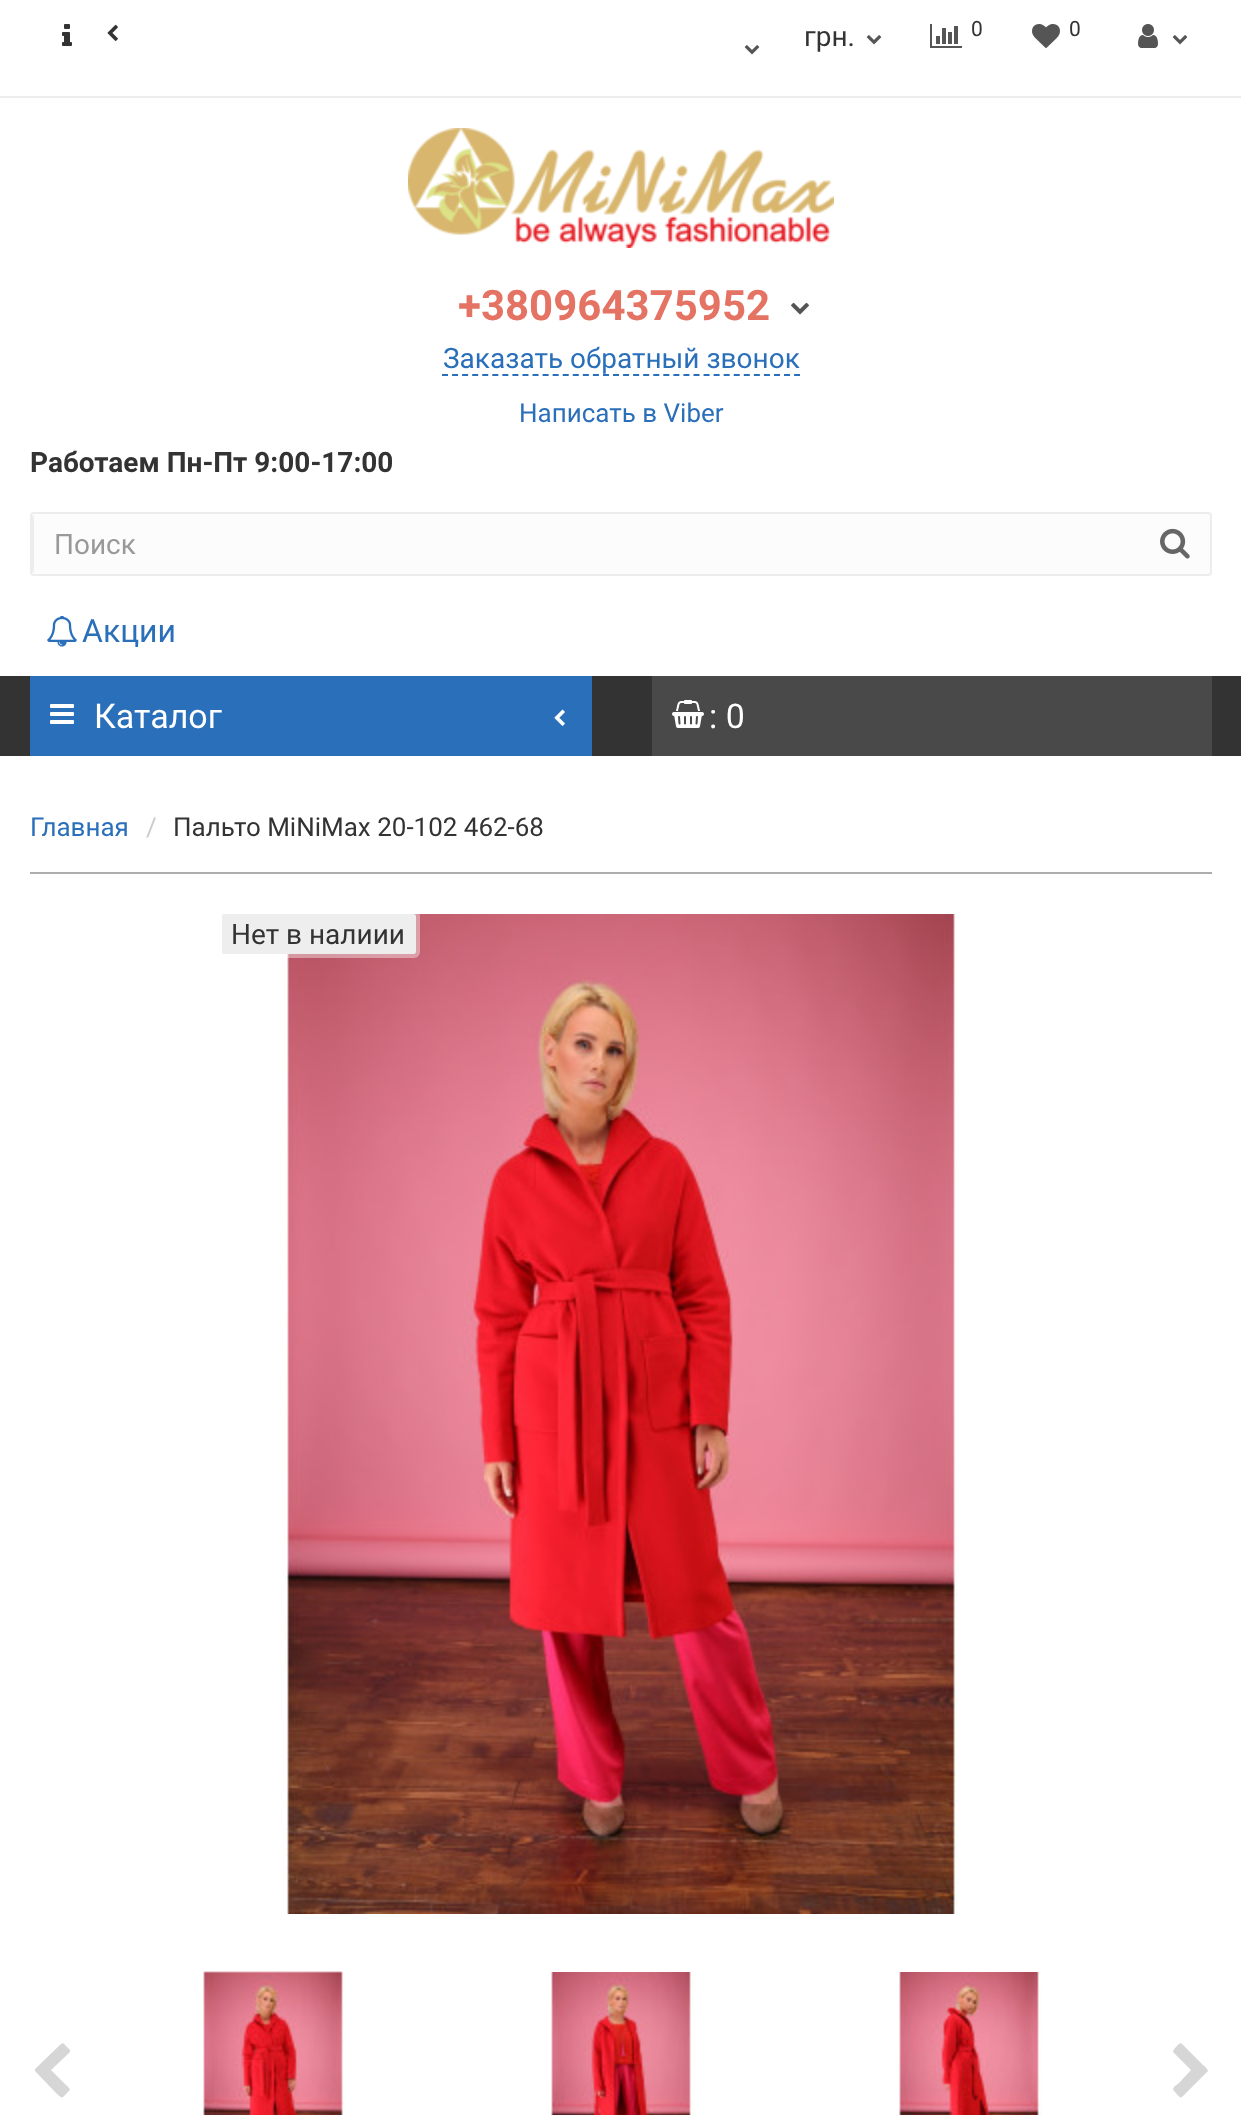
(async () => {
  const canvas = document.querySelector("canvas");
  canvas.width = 1241;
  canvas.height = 2115;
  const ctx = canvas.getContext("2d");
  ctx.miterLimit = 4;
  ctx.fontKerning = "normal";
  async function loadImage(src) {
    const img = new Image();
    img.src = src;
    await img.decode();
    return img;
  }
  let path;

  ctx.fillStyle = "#ffffff";
  ctx.fillRect(0, 0, 1241, 2115);
  ctx.fillStyle = "#ededed";
  ctx.fillRect(0, 96, 1241, 2);
  ctx.drawImage(await loadImage("img/1.png"), 62, 24, 10, 22);
  ctx.drawImage(await loadImage("img/2.png"), 107, 24, 11, 17);
  ctx.drawImage(await loadImage("img/3.png"), 744, 45, 16, 10);
  ctx.drawImage(await loadImage("img/3.png"), 866, 35, 16, 10);
  ctx.drawImage(await loadImage("img/4.png"), 930, 24, 32, 24);
  ctx.drawImage(await loadImage("img/5.png"), 1032, 24, 28, 24);
  ctx.drawImage(await loadImage("img/6.png"), 1138, 24, 20, 24);
  ctx.drawImage(await loadImage("img/3.png"), 1172, 35, 16, 10);
  ctx.drawImage(await loadImage("img/7.png"), 408, 128, 426, 120);
  ctx.drawImage(await loadImage("img/8.png"), 791, 302, 18, 13);
  path = new Path2D("M442 375H800");
  ctx.strokeStyle = "#2a6fba";
  ctx.lineWidth = 2;
  ctx.setLineDash([6, 4.06]);
  ctx.stroke(path);
  ctx.fillStyle = "#fcfcfc";
  ctx.beginPath();
  ctx.roundRect(31, 513, 1180, 62, 3);
  ctx.fill();
  ctx.strokeStyle = "#ededed";
  ctx.setLineDash([]);
  ctx.stroke();
  ctx.fillStyle = "#ededed";
  ctx.fillRect(32, 516, 2, 56);
  ctx.drawImage(await loadImage("img/9.png"), 1160, 528, 30, 31);
  ctx.drawImage(await loadImage("img/10.png"), 47, 616, 30, 31);
  ctx.fillStyle = "#333333";
  ctx.fillRect(0, 676, 1241, 80);
  ctx.fillStyle = "#2a6fba";
  ctx.fillRect(30, 676, 562, 80);
  ctx.drawImage(await loadImage("img/11.png"), 50, 704, 24, 20);
  ctx.drawImage(await loadImage("img/12.png"), 554, 709, 11, 17);
  ctx.fillStyle = "#494949";
  ctx.fillRect(652, 676, 560, 80);
  ctx.drawImage(await loadImage("img/13.png"), 672, 700, 32, 28);
  ctx.fillStyle = "#adadad";
  ctx.fillRect(30, 872, 1182, 2);
  ctx.drawImage(await loadImage("img/14.png"), 285, 914, 673, 1000);
  ctx.beginPath();
  ctx.roundRect(220, 912, 198, 44, 4);
  ctx.strokeStyle = "rgba(255, 255, 255, 0.4)";
  ctx.lineWidth = 4;
  ctx.stroke();
  ctx.fillStyle = "#eeeeee";
  ctx.beginPath();
  ctx.roundRect(222, 914, 194, 40, 2);
  ctx.fill();
  ctx.drawImage(await loadImage("img/15.png"), 202, 1971, 144, 144);
  ctx.drawImage(await loadImage("img/16.png"), 550, 1972, 144, 143);
  ctx.drawImage(await loadImage("img/17.png"), 897, 1972, 145, 143);
  ctx.fillStyle = "#d6d6d6";
  path = new Path2D("M69 2053L51 2070L66 2085C71 2090 71 2089 67 2093C61 2099 63 2099 56 2093L35 2071V2069L61 2044C63 2042 65 2045 66 2046L70 2050C70 2051 70 2052 69 2053Z");
  ctx.fill(path);
  path = new Path2D("M1207 2072L1186 2093C1180 2099 1181 2099 1175 2092C1170 2088 1176 2086 1180 2082L1191 2070L1173 2052C1173 2050 1175 2048 1176 2047C1181 2042 1180 2042 1186 2048L1203 2065C1203 2065 1208 2069 1208 2071Z");
  ctx.fill(path);
  ctx.font = "28px Roboto";
  ctx.fillStyle = "#333333";
  ctx.fillText("грн.", 804, 46);
  ctx.font = "21px Roboto";
  ctx.fillText("0", 971, 36);
  ctx.fillText("0", 1069, 36);
  ctx.font = "bold 42px Roboto";
  ctx.fillStyle = "#e47364";
  ctx.fillText("+380964375952", 458, 320);
  ctx.font = "28px Roboto";
  ctx.fillStyle = "#2a6fba";
  ctx.fillText("Заказать обратный звонок", 443, 368);
  ctx.font = "26px Roboto";
  ctx.fillText("Написать в Viber", 519, 422);
  ctx.font = "bold 28px Roboto";
  ctx.fillStyle = "#333333";
  ctx.fillText("Работаем Пн-Пт 9:00-17:00", 30, 472);
  ctx.font = "28px Roboto";
  ctx.fillStyle = "#999999";
  ctx.fillText("Поиск", 54, 554);
  ctx.font = "32px Roboto";
  ctx.fillStyle = "#2a6fba";
  ctx.fillText("Акции", 82, 642);
  ctx.font = "34px Roboto";
  ctx.fillStyle = "#ffffff";
  ctx.fillText("Каталог", 94, 728);
  ctx.fillText(": 0", 709, 728);
  ctx.font = "26px Roboto";
  ctx.fillStyle = "#2a6fba";
  ctx.fillText("Главная", 30, 836);
  ctx.fillStyle = "#cccccc";
  ctx.fillText("/", 146, 836);
  ctx.fillStyle = "#333333";
  ctx.fillText("Пальто MiNiMax 20-102 462-68", 173, 836);
  ctx.font = "28px Roboto";
  ctx.fillText("Нет в налиии", 231, 944);
})();
